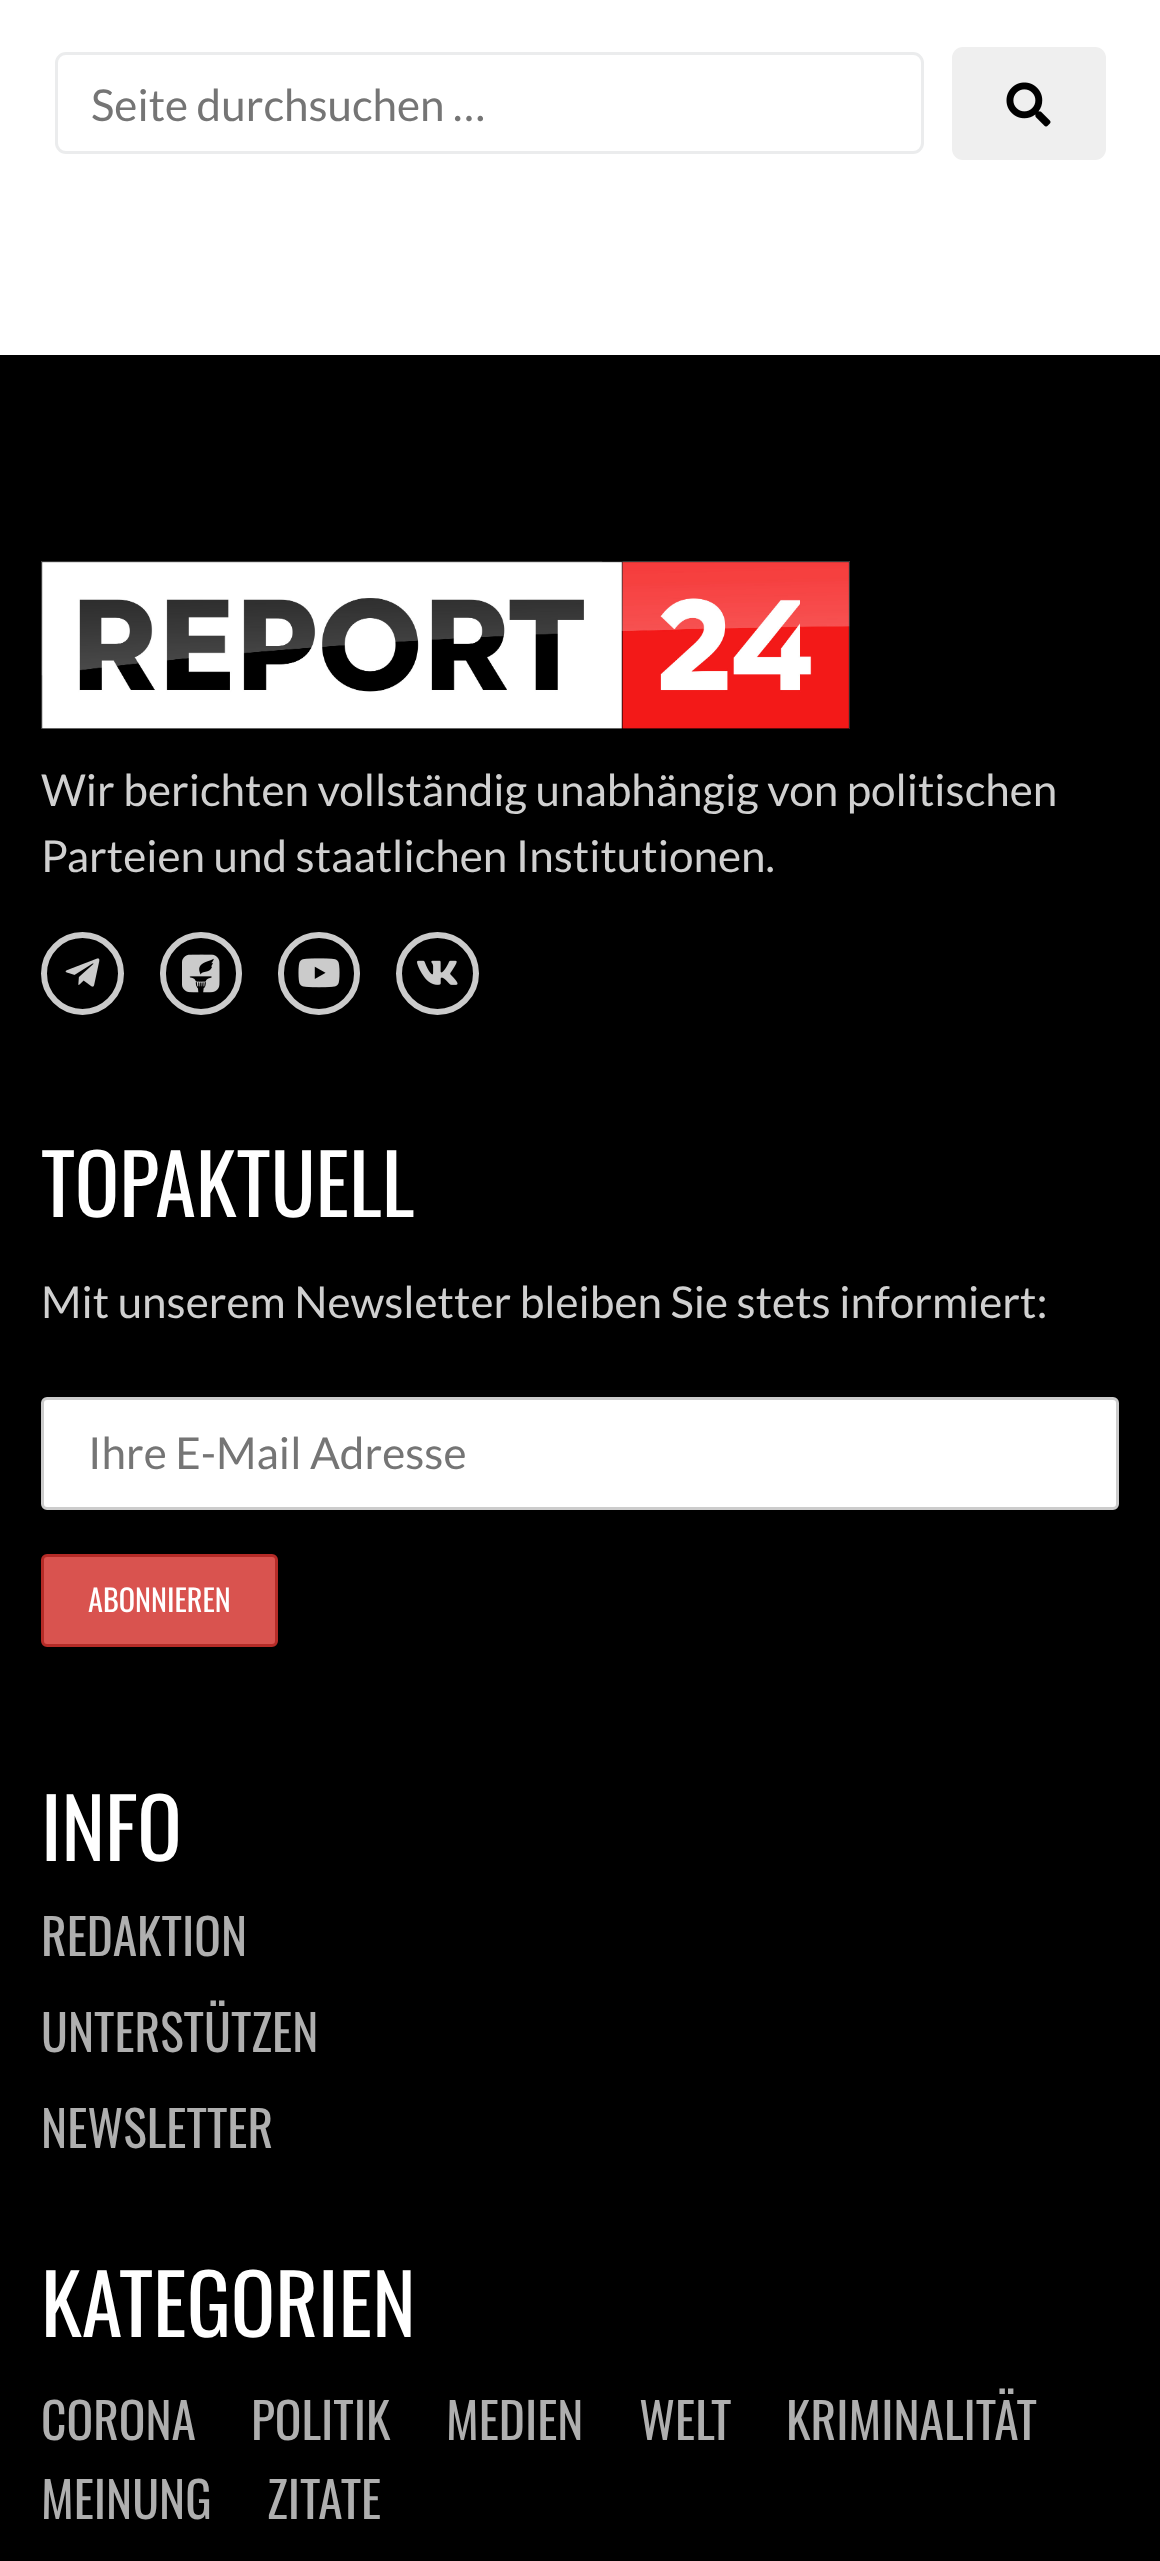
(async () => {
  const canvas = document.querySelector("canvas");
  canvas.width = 1160;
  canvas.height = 2561;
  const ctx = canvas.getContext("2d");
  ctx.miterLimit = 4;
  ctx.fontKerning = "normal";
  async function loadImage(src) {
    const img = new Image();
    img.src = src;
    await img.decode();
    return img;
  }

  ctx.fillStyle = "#ffffff";
  ctx.fillRect(0, 0, 1160, 2561);
  ctx.beginPath();
  ctx.roundRect(56.5, 53.5, 866, 99, 9.5);
  ctx.strokeStyle = "#ebeced";
  ctx.lineWidth = 3;
  ctx.stroke();
  ctx.fillStyle = "#efefef";
  ctx.beginPath();
  ctx.roundRect(952, 47, 154, 113, 11);
  ctx.fill();
  ctx.drawImage(await loadImage("img/1.png"), 1006, 82, 45, 45);
  ctx.fillStyle = "#000000";
  ctx.fillRect(0, 355, 1160, 2206);
  ctx.drawImage(await loadImage("img/2.png"), 41, 561, 809, 168);
  ctx.beginPath();
  ctx.arc(82.5, 973.5, 38.5, 0, Math.PI * 2);
  ctx.strokeStyle = "#cbcbcb";
  ctx.lineWidth = 6;
  ctx.stroke();
  ctx.drawImage(await loadImage("img/3.png"), 65, 958, 35, 29);
  ctx.beginPath();
  ctx.roundRect(163, 935, 76, 77, 38);
  ctx.stroke();
  ctx.drawImage(await loadImage("img/4.png"), 182, 954, 38, 39);
  ctx.beginPath();
  ctx.roundRect(281, 935, 76, 77, 38);
  ctx.stroke();
  ctx.drawImage(await loadImage("img/5.png"), 298, 958, 42, 30);
  ctx.beginPath();
  ctx.arc(437.5, 973.5, 38.5, 0, Math.PI * 2);
  ctx.stroke();
  ctx.drawImage(await loadImage("img/6.png"), 417, 960, 41, 25);
  ctx.fillStyle = "#ffffff";
  ctx.beginPath();
  ctx.roundRect(42.5, 1398.5, 1075, 110, 4.5);
  ctx.fill();
  ctx.strokeStyle = "#cccccc";
  ctx.lineWidth = 3;
  ctx.stroke();
  ctx.fillStyle = "#d9534f";
  ctx.beginPath();
  ctx.roundRect(42.5, 1555.5, 234, 90, 4.5);
  ctx.fill();
  ctx.strokeStyle = "#b52b27";
  ctx.stroke();
  ctx.font = "44px Lato";
  ctx.fillStyle = "#757575";
  ctx.fillText("Seite durchsuchen …", 91, 121);
  ctx.fillStyle = "#d0d0d0";
  ctx.fillText("Wir berichten vollständig unabhängig von politischen", 41, 806);
  ctx.fillText("Parteien und staatlichen Institutionen.", 41, 872);
  ctx.font = "82.5px Oswald";
  ctx.fillStyle = "#ffffff";
  ctx.fillText("TOPAKTUELL", 41, 1217);
  ctx.font = "44px Lato";
  ctx.fillStyle = "#d0d0d0";
  ctx.fillText("Mit unserem Newsletter bleiben Sie stets informiert:", 41, 1318);
  ctx.fillStyle = "#757575";
  ctx.fillText("Ihre E-Mail Adresse", 88, 1469);
  ctx.font = "30.25px Oswald";
  ctx.fillStyle = "#ffffff";
  ctx.fillText("ABONNIEREN", 88, 1612);
  ctx.font = "82.5px Oswald";
  ctx.fillText("INFO", 41, 1861);
  ctx.font = "49.5px Oswald";
  ctx.fillStyle = "#afafaf";
  for (const [text, x, y] of [
    ["REDAKTION", 41, 1956],
    ["UNTERSTÜTZEN", 41, 2052],
    ["NEWSLETTER", 41, 2148],
  ]) {
    ctx.fillText(text, x, y);
  }
  ctx.font = "82.5px Oswald";
  ctx.fillStyle = "#ffffff";
  ctx.fillText("KATEGORIEN", 41, 2337);
  ctx.font = "49.5px Oswald";
  ctx.fillStyle = "#afafaf";
  for (const [text, x, y] of [
    ["CORONA", 41, 2440],
    ["POLITIK", 251, 2440],
    ["MEDIEN", 446, 2440],
    ["WELT", 639, 2440],
    ["KRIMINALITÄT", 786, 2440],
    ["MEINUNG", 41, 2519],
    ["ZITATE", 267, 2519],
  ]) {
    ctx.fillText(text, x, y);
  }
})();
